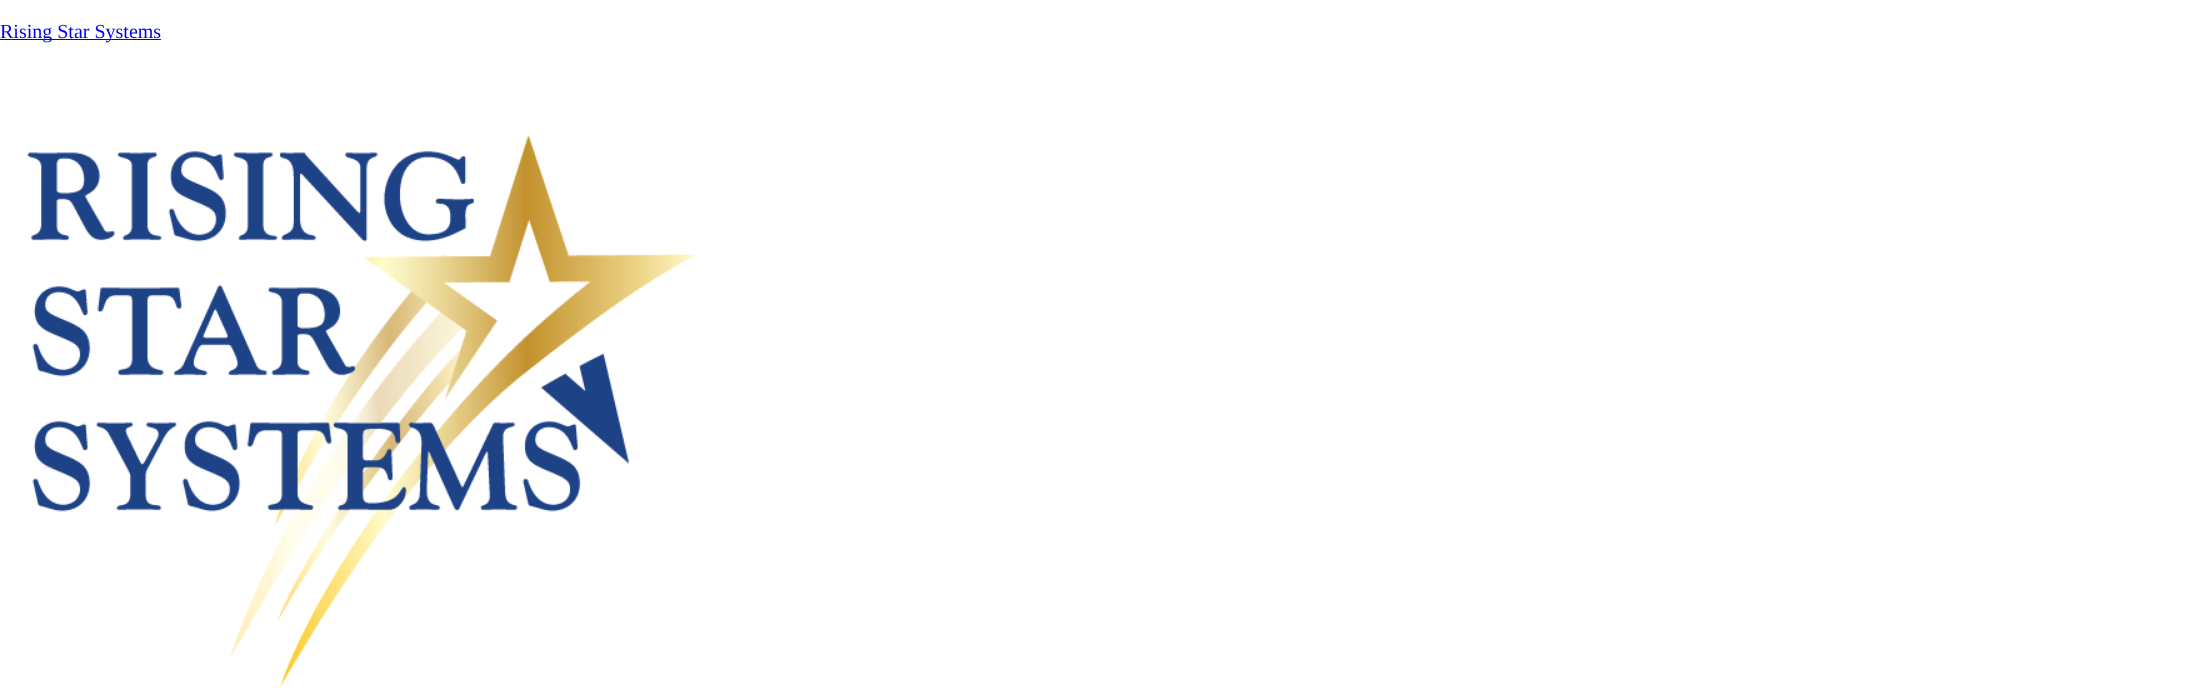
(async () => {
  const canvas = document.querySelector("canvas");
  canvas.width = 2203;
  canvas.height = 696;
  const ctx = canvas.getContext("2d");
  ctx.miterLimit = 4;
  ctx.fontKerning = "normal";
  async function loadImage(src) {
    const img = new Image();
    img.src = src;
    await img.decode();
    return img;
  }

  ctx.fillStyle = "#ffffff";
  ctx.fillRect(0, 0, 2203, 696);
  ctx.fillStyle = "#0000ee";
  ctx.fillRect(0, 39, 161, 1);
  ctx.drawImage(await loadImage("img/1.png"), 27, 135, 668, 552);
  ctx.font = "20px Liberation Serif";
  ctx.fillText("Rising Star Systems", 0, 38);
})();
